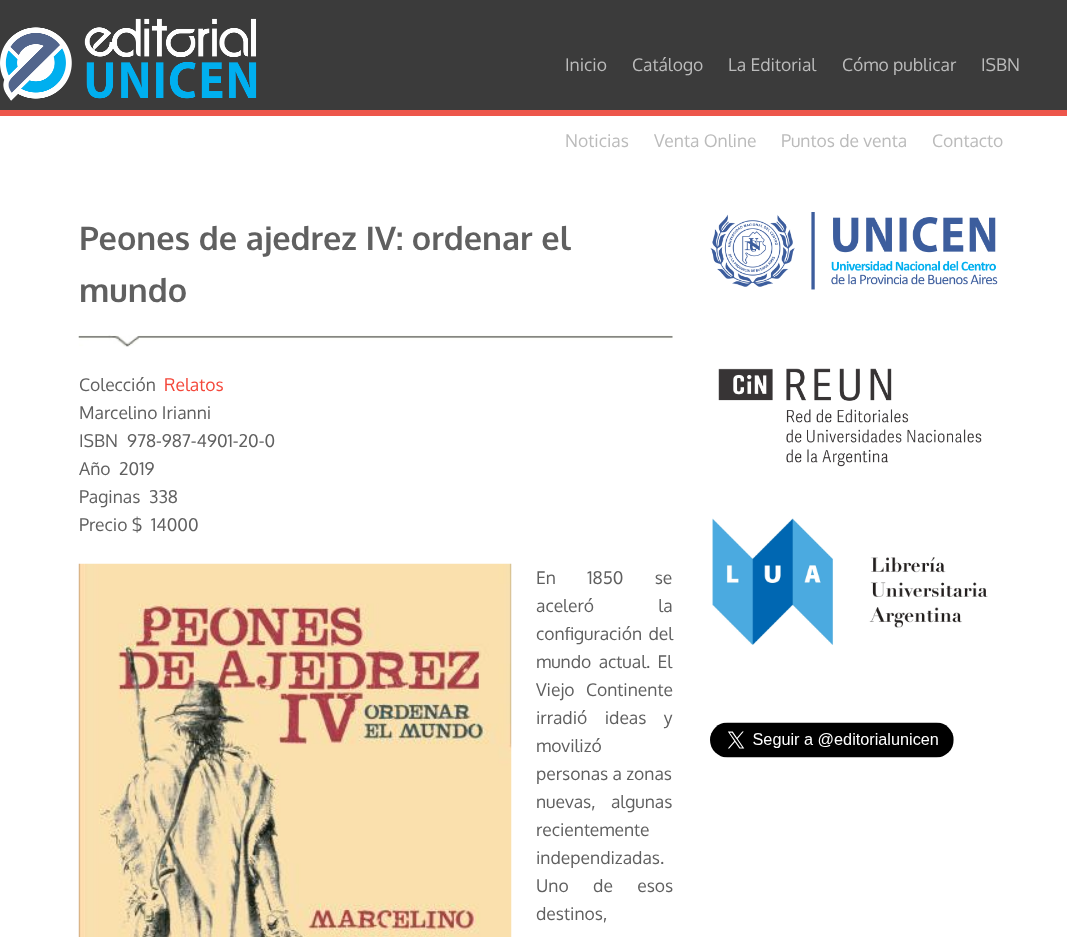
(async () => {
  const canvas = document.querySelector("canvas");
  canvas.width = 1067;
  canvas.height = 937;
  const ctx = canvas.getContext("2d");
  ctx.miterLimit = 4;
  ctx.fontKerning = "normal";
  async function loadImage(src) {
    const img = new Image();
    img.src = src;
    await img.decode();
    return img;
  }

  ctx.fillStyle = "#ffffff";
  ctx.fillRect(0, 0, 1067, 937);
  ctx.fillStyle = "#3b3b3b";
  ctx.fillRect(0, 0, 1067, 110);
  ctx.fillStyle = "#ed564b";
  ctx.fillRect(0, 110, 1067, 6);
  ctx.drawImage(await loadImage("img/1.png"), 0, 18, 257, 83);
  ctx.drawImage(await loadImage("img/2.png"), 78, 335, 595, 12);
  ctx.drawImage(await loadImage("img/3.png"), 78, 563, 434, 374);
  ctx.drawImage(await loadImage("img/4.png"), 710, 212, 288, 78);
  ctx.drawImage(await loadImage("img/5.png"), 718, 368, 264, 99);
  ctx.drawImage(await loadImage("img/6.png"), 712, 518, 276, 127);
  ctx.drawImage(await loadImage("img/7.png"), 710, 722, 244, 36);
  ctx.font = "17.5px Oxygen";
  ctx.fillStyle = "#bbbbbb";
  for (const [text, x, y] of [
    ["Inicio", 565, 71],
    ["Catálogo", 632, 71],
    ["La Editorial", 728, 71],
    ["Cómo publicar", 842, 71],
    ["ISBN", 981, 71],
    ["Noticias", 565, 147],
    ["Venta Online", 654, 147],
    ["Puntos de venta", 781, 147],
    ["Contacto", 932, 147],
  ]) {
    ctx.fillText(text, x, y);
  }
  ctx.font = "bold 32.5px Oxygen";
  ctx.fillStyle = "#606060";
  ctx.fillText("Peones de ajedrez IV: ordenar el", 79, 250);
  ctx.fillText("mundo", 79, 302);
  ctx.font = "17.5px Oxygen";
  ctx.fillText("Colección", 79, 391);
  ctx.fillStyle = "#f4473a";
  ctx.fillText("Relatos", 164, 391);
  ctx.fillStyle = "#606060";
  for (const [text, x, y] of [
    ["Marcelino Irianni", 79, 419],
    ["ISBN", 79, 447],
    ["978-987-4901-20-0", 127, 447],
    ["Año", 79, 475],
    ["2019", 119, 475],
    ["Paginas", 79, 503],
    ["338", 149, 503],
    ["Precio $", 79, 531],
    ["14000", 151, 531],
  ]) {
    ctx.fillText(text, x, y);
  }
  ctx.wordSpacing = "27px";
  ctx.fillText("En 1850 se", 536, 584);
  ctx.wordSpacing = "60px";
  ctx.fillText("aceleró la", 536, 612);
  ctx.wordSpacing = "2px";
  ctx.fillText("configuración del", 536, 640);
  ctx.wordSpacing = "3px";
  ctx.fillText("mundo actual. El", 536, 668);
  ctx.wordSpacing = "7px";
  ctx.fillText("Viejo Continente", 536, 696);
  ctx.wordSpacing = "13px";
  ctx.fillText("irradió ideas y", 536, 724);
  ctx.wordSpacing = "0px";
  ctx.fillText("movilizó", 536, 752);
  ctx.fillText("personas a zonas", 536, 780);
  ctx.wordSpacing = "11px";
  ctx.fillText("nuevas, algunas", 536, 808);
  ctx.wordSpacing = "0px";
  ctx.fillText("recientemente", 536, 836);
  ctx.fillText("independizadas.", 536, 864);
  ctx.wordSpacing = "20px";
  ctx.fillText("Uno de esos", 536, 892);
  ctx.wordSpacing = "0px";
  ctx.fillText("destinos,", 536, 920);
})();
